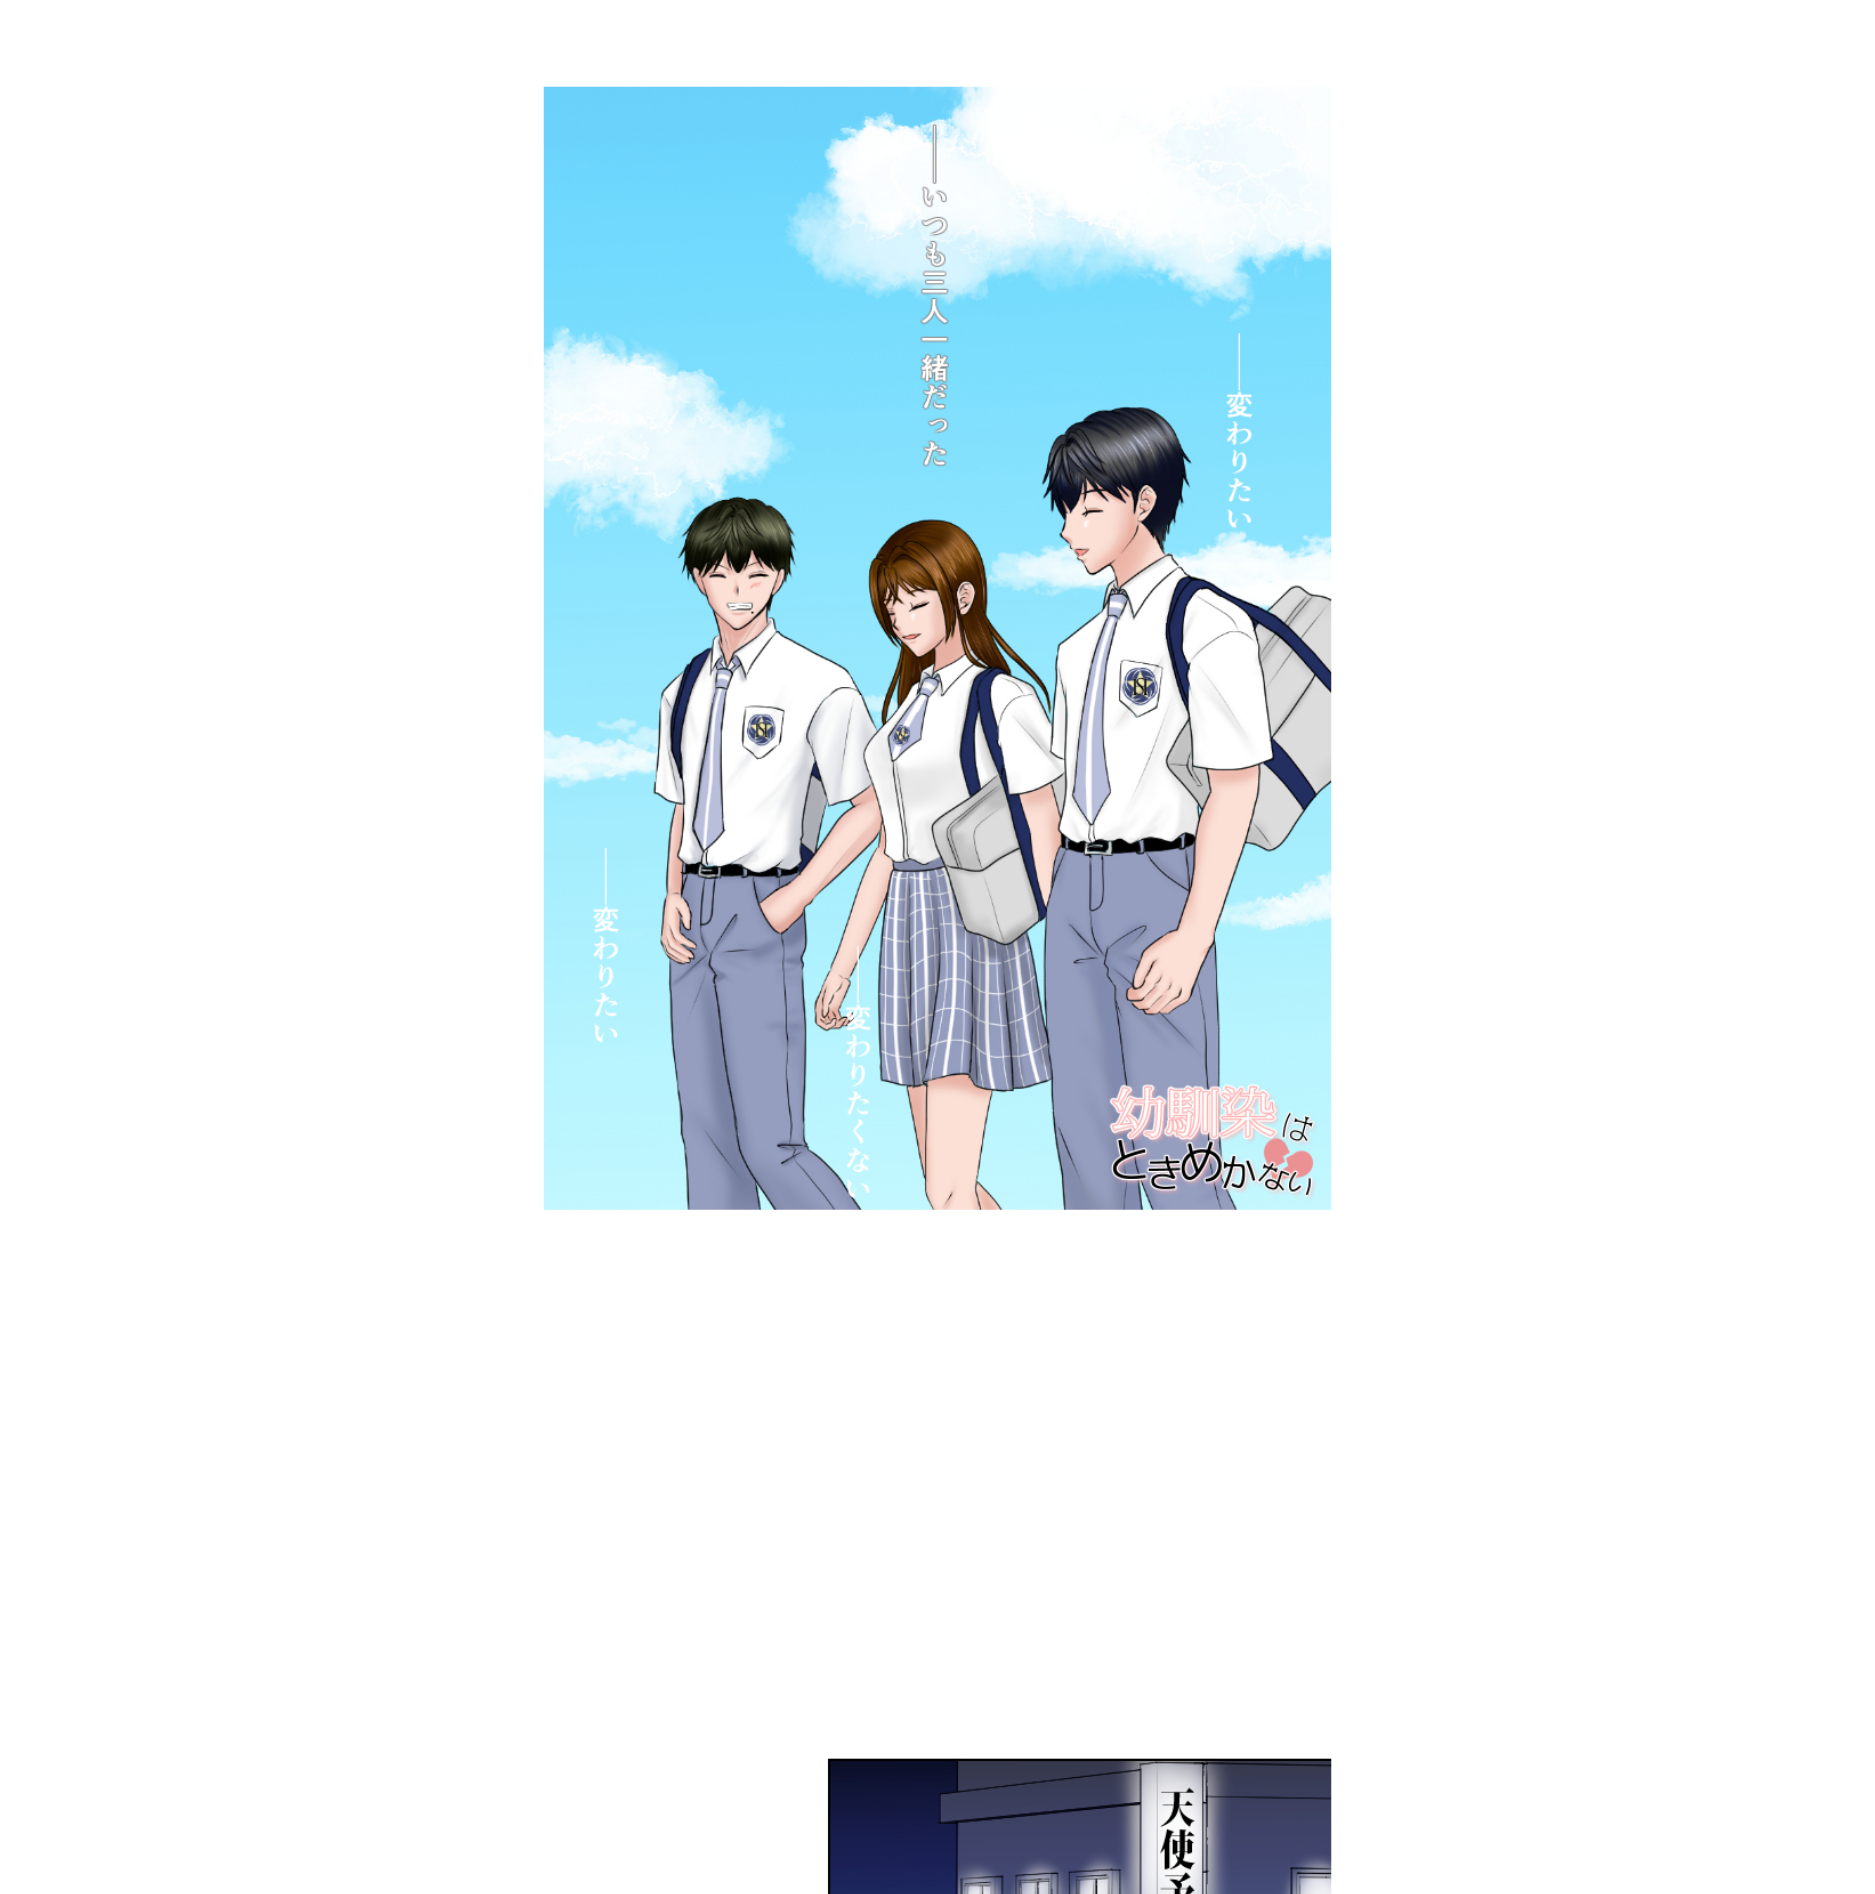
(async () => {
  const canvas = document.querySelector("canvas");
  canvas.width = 1875;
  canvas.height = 1894;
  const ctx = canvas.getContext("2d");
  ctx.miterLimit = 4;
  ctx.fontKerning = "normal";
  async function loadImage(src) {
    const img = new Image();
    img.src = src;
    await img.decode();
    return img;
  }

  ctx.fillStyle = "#ffffff";
  ctx.fillRect(0, 0, 1875, 1894);
  ctx.drawImage(await loadImage("img/1.png"), 543, 86, 789, 1808);
})();
